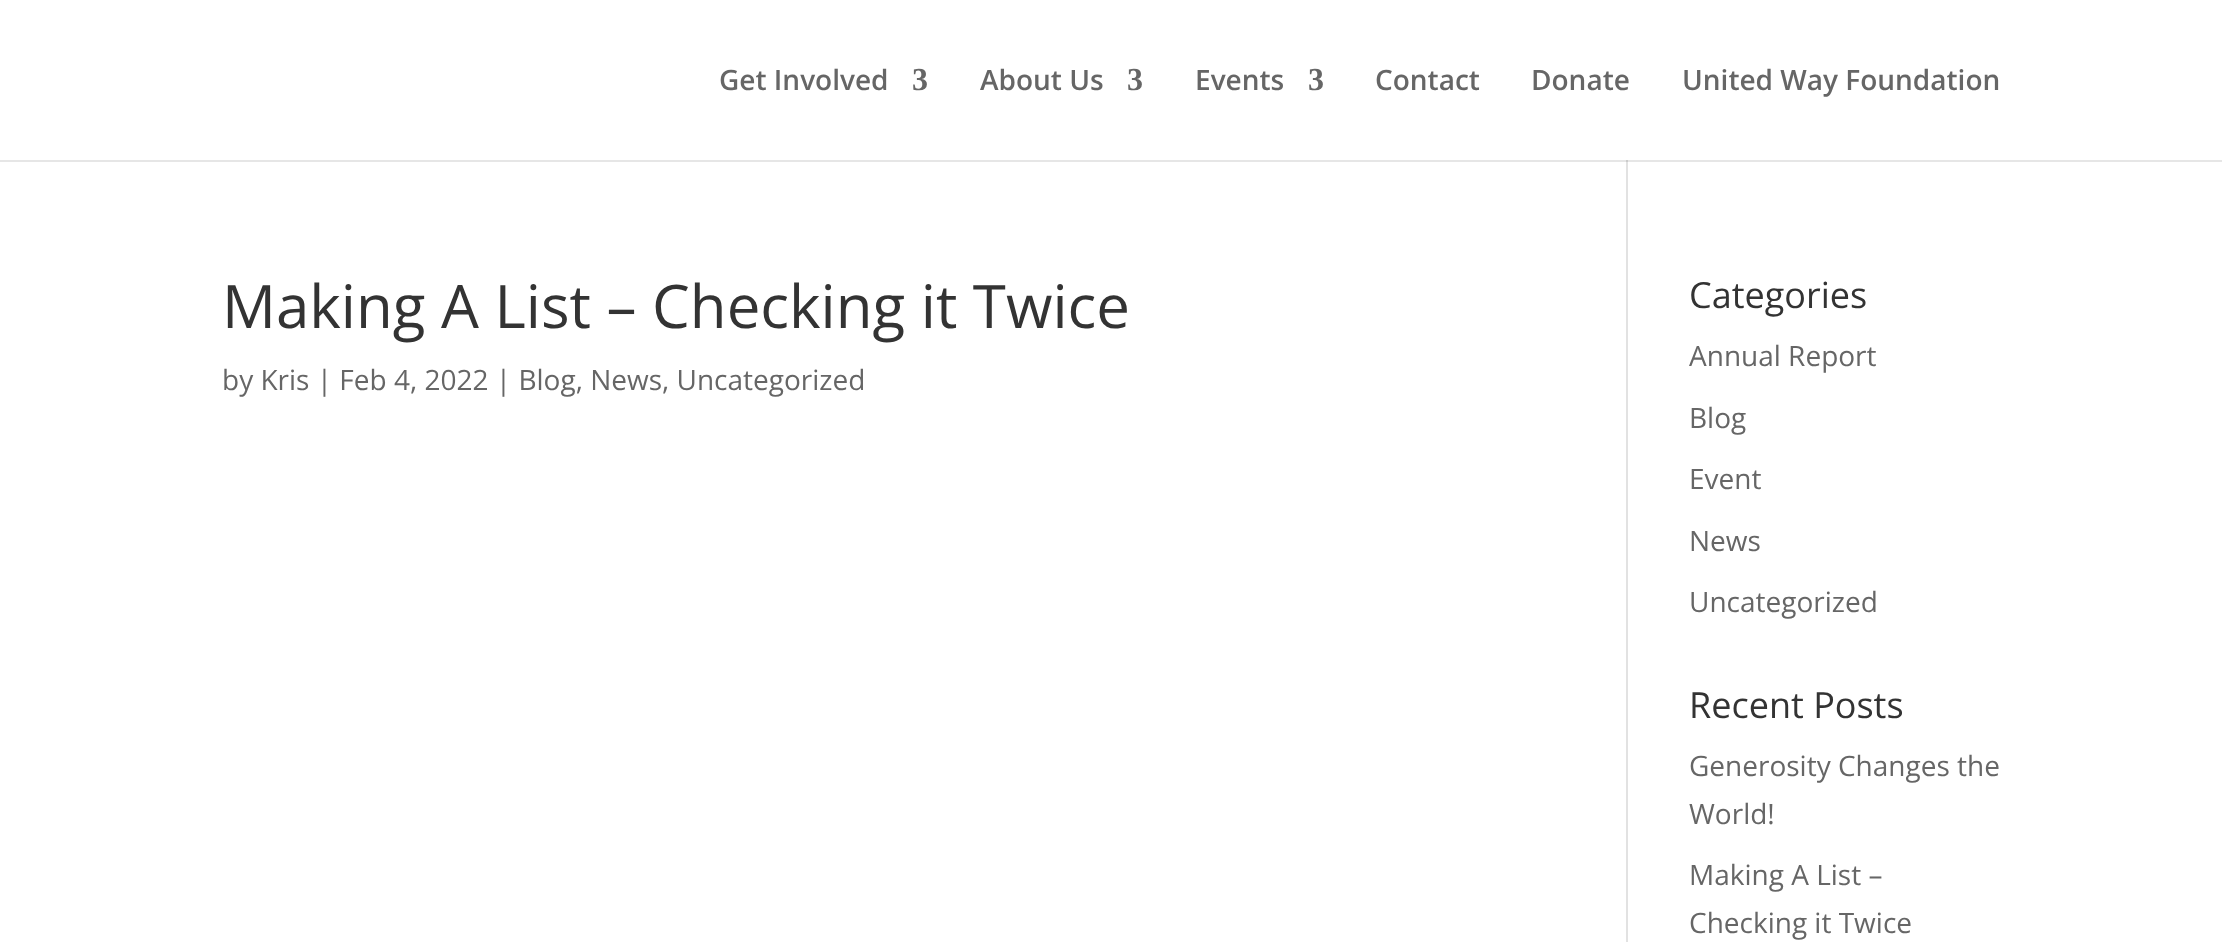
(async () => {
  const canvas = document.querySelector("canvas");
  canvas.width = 2222;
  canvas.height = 942;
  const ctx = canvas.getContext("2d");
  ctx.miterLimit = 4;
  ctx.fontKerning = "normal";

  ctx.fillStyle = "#ffffff";
  ctx.fillRect(0, 0, 2222, 942);
  for (const [x, y, w, h, color] of [
    [0, 160, 2222, 2, "#e6e6e6"],
    [1626, 160, 2, 782, "#e2e2e2"],
    [1626, 160, 2, 2, "#cbcbcb"],
  ]) {
    ctx.fillStyle = color;
    ctx.fillRect(x, y, w, h);
  }
  ctx.font = "600 28px Open Sans";
  ctx.fillStyle = "#666666";
  ctx.fillText("Get Involved", 719, 90);
  ctx.font = "bold 32px Liberation Serif";
  ctx.fillText("3", 912, 90);
  ctx.font = "600 28px Open Sans";
  ctx.fillText("About Us", 980, 90);
  ctx.font = "bold 32px Liberation Serif";
  ctx.fillText("3", 1127, 90);
  ctx.font = "600 28px Open Sans";
  ctx.fillText("Events", 1195, 90);
  ctx.font = "bold 32px Liberation Serif";
  ctx.fillText("3", 1308, 90);
  ctx.font = "600 28px Open Sans";
  for (const [text, x, y] of [
    ["Contact", 1375, 90],
    ["Donate", 1531, 90],
    ["United Way Foundation", 1682, 90],
  ]) {
    ctx.fillText(text, x, y);
  }
  ctx.font = "60px Open Sans";
  ctx.fillStyle = "#333333";
  ctx.fillText("Making A List – Checking it Twice", 222, 328);
  ctx.font = "28px Open Sans";
  ctx.fillStyle = "#666666";
  ctx.fillText("by Kris | Feb 4, 2022 | Blog, News, Uncategorized", 222, 390);
  ctx.font = "36px Open Sans";
  ctx.fillStyle = "#333333";
  ctx.fillText("Categories", 1689, 308);
  ctx.font = "28px Open Sans";
  ctx.fillStyle = "#666666";
  for (const [text, x, y] of [
    ["Annual Report", 1689, 366],
    ["Blog", 1689, 428],
    ["Event", 1689, 489],
    ["News", 1689, 551],
    ["Uncategorized", 1689, 612],
  ]) {
    ctx.fillText(text, x, y);
  }
  ctx.font = "36px Open Sans";
  ctx.fillStyle = "#333333";
  ctx.fillText("Recent Posts", 1689, 718);
  ctx.font = "28px Open Sans";
  ctx.fillStyle = "#666666";
  for (const [text, x, y] of [
    ["Generosity Changes the", 1689, 776],
    ["World!", 1689, 824],
    ["Making A List –", 1689, 885],
    ["Checking it Twice", 1689, 933],
  ]) {
    ctx.fillText(text, x, y);
  }
})();
